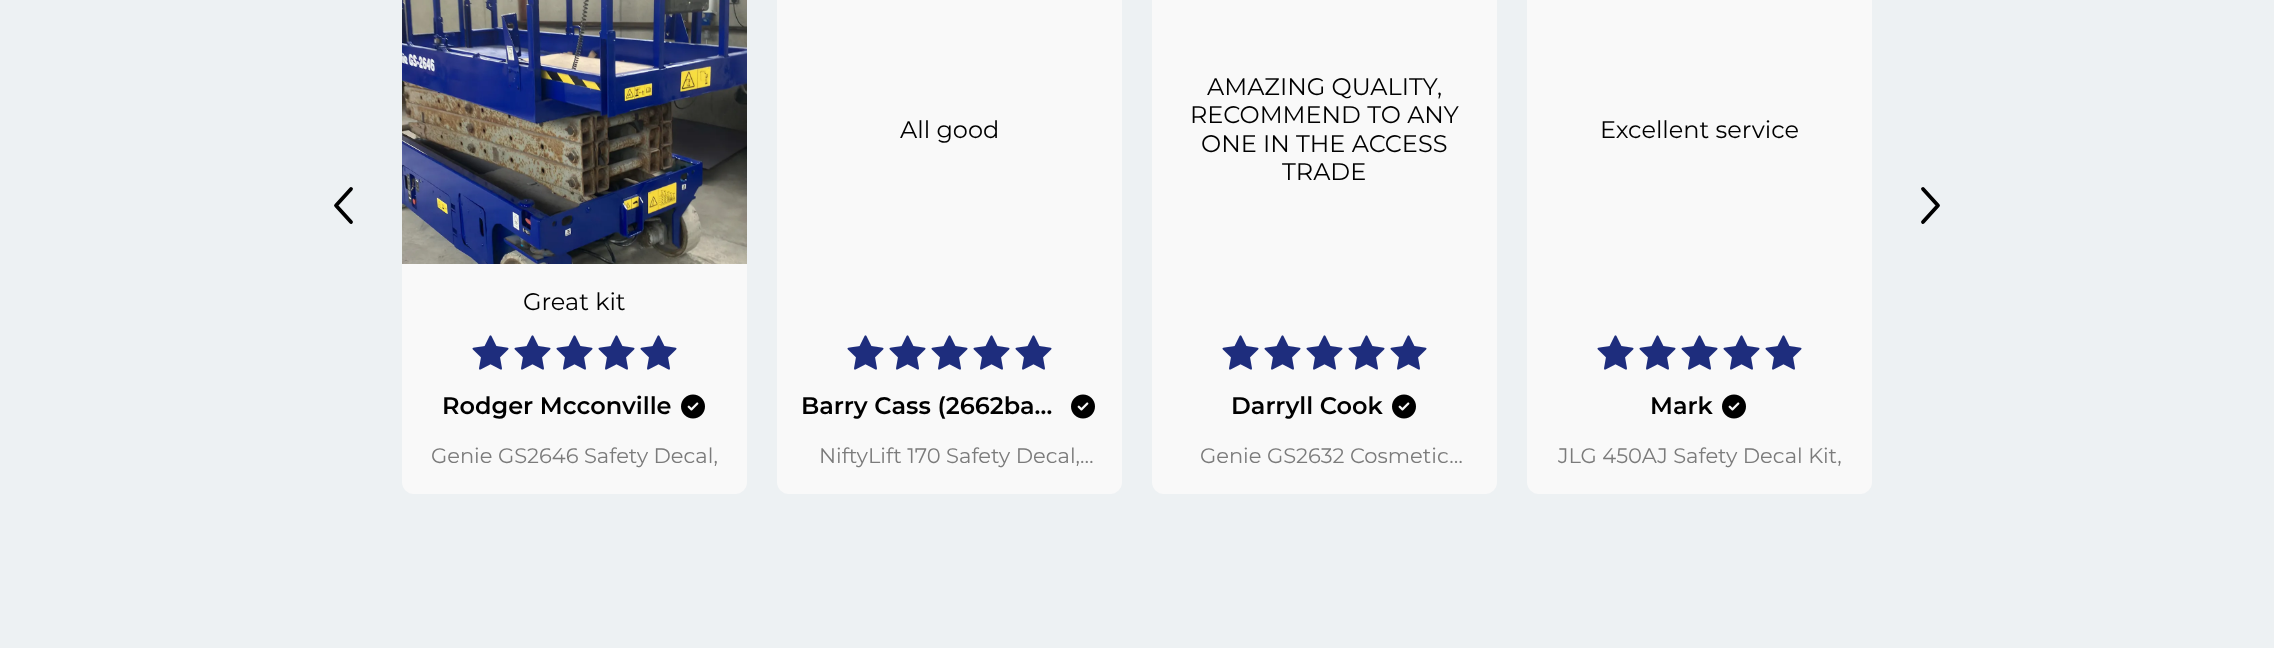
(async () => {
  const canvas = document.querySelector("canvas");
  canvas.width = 2274;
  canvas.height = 648;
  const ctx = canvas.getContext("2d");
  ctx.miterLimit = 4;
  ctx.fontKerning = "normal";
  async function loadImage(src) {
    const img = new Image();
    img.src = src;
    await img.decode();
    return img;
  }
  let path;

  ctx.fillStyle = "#edf1f3";
  ctx.fillRect(0, 0, 2274, 648);
  path = new Path2D("M351 189L336 205.5L351 222");
  ctx.strokeStyle = "#000000";
  ctx.lineWidth = 3.8;
  ctx.lineCap = "round";
  ctx.lineJoin = "round";
  ctx.stroke(path);
  ctx.fillStyle = "#f9f9f9";
  ctx.beginPath();
  ctx.roundRect(402, -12, 345, 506, 12);
  ctx.fill();
  ctx.drawImage(await loadImage("img/1.png"), 402, 0, 345, 264);
  ctx.drawImage(await loadImage("img/2.png"), 472, 335, 37, 35);
  ctx.drawImage(await loadImage("img/2.png"), 514, 335, 37, 35);
  ctx.drawImage(await loadImage("img/2.png"), 556, 335, 37, 35);
  ctx.drawImage(await loadImage("img/2.png"), 598, 335, 37, 35);
  ctx.drawImage(await loadImage("img/2.png"), 640, 335, 37, 35);
  ctx.drawImage(await loadImage("img/3.png"), 681, 394, 24, 25);
  ctx.beginPath();
  ctx.roundRect(777, -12, 345, 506, 12);
  ctx.fill();
  ctx.drawImage(await loadImage("img/2.png"), 847, 335, 37, 35);
  ctx.drawImage(await loadImage("img/2.png"), 889, 335, 37, 35);
  ctx.drawImage(await loadImage("img/2.png"), 931, 335, 37, 35);
  ctx.drawImage(await loadImage("img/2.png"), 973, 335, 37, 35);
  ctx.drawImage(await loadImage("img/2.png"), 1015, 335, 37, 35);
  ctx.drawImage(await loadImage("img/3.png"), 1071, 394, 24, 25);
  ctx.beginPath();
  ctx.roundRect(1152, -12, 345, 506, 12);
  ctx.fill();
  ctx.drawImage(await loadImage("img/2.png"), 1222, 335, 37, 35);
  ctx.drawImage(await loadImage("img/2.png"), 1264, 335, 37, 35);
  ctx.drawImage(await loadImage("img/2.png"), 1306, 335, 37, 35);
  ctx.drawImage(await loadImage("img/2.png"), 1348, 335, 37, 35);
  ctx.drawImage(await loadImage("img/2.png"), 1390, 335, 37, 35);
  ctx.drawImage(await loadImage("img/3.png"), 1392, 394, 24, 25);
  ctx.beginPath();
  ctx.roundRect(1527, -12, 345, 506, 12);
  ctx.fill();
  ctx.drawImage(await loadImage("img/2.png"), 1597, 335, 37, 35);
  ctx.drawImage(await loadImage("img/2.png"), 1639, 335, 37, 35);
  ctx.drawImage(await loadImage("img/2.png"), 1681, 335, 37, 35);
  ctx.drawImage(await loadImage("img/2.png"), 1723, 335, 37, 35);
  ctx.drawImage(await loadImage("img/2.png"), 1765, 335, 37, 35);
  ctx.drawImage(await loadImage("img/3.png"), 1722, 394, 24, 25);
  path = new Path2D("M1923 189L1938 205.5L1923 222");
  ctx.stroke(path);
  ctx.font = "24px Montserrat";
  ctx.fillStyle = "#000000";
  ctx.fillText("Great kit", 523, 310);
  ctx.font = "600 24px Montserrat";
  ctx.fillText("Rodger Mcconville", 442, 414);
  ctx.font = "21px Montserrat";
  ctx.fillStyle = "#7b7b7b";
  ctx.fillText("Genie GS2646 Safety Decal,", 431, 463);
  ctx.font = "24px Montserrat";
  ctx.fillStyle = "#000000";
  ctx.fillText("All good", 900, 138);
  ctx.font = "600 24px Montserrat";
  ctx.fillText("Barry Cass (2662ba…", 801, 414);
  ctx.font = "21px Montserrat";
  ctx.fillStyle = "#7b7b7b";
  ctx.fillText("NiftyLift 170 Safety Decal,…", 819, 463);
  ctx.font = "24px Montserrat";
  ctx.fillStyle = "#000000";
  for (const [text, x, y] of [
    ["AMAZING QUALITY,", 1207, 95],
    ["RECOMMEND TO ANY", 1190, 123],
    ["ONE IN THE ACCESS", 1201, 152],
    ["TRADE", 1282, 180],
  ]) {
    ctx.fillText(text, x, y);
  }
  ctx.font = "600 24px Montserrat";
  ctx.fillText("Darryll Cook", 1231, 414);
  ctx.font = "21px Montserrat";
  ctx.fillStyle = "#7b7b7b";
  ctx.fillText("Genie GS2632 Cosmetic…", 1200, 463);
  ctx.font = "24px Montserrat";
  ctx.fillStyle = "#000000";
  ctx.fillText("Excellent service", 1600, 138);
  ctx.font = "600 24px Montserrat";
  ctx.fillText("Mark", 1650, 414);
  ctx.font = "21px Montserrat";
  ctx.fillStyle = "#7b7b7b";
  ctx.fillText("JLG 450AJ Safety Decal Kit,", 1558, 463);
})();
